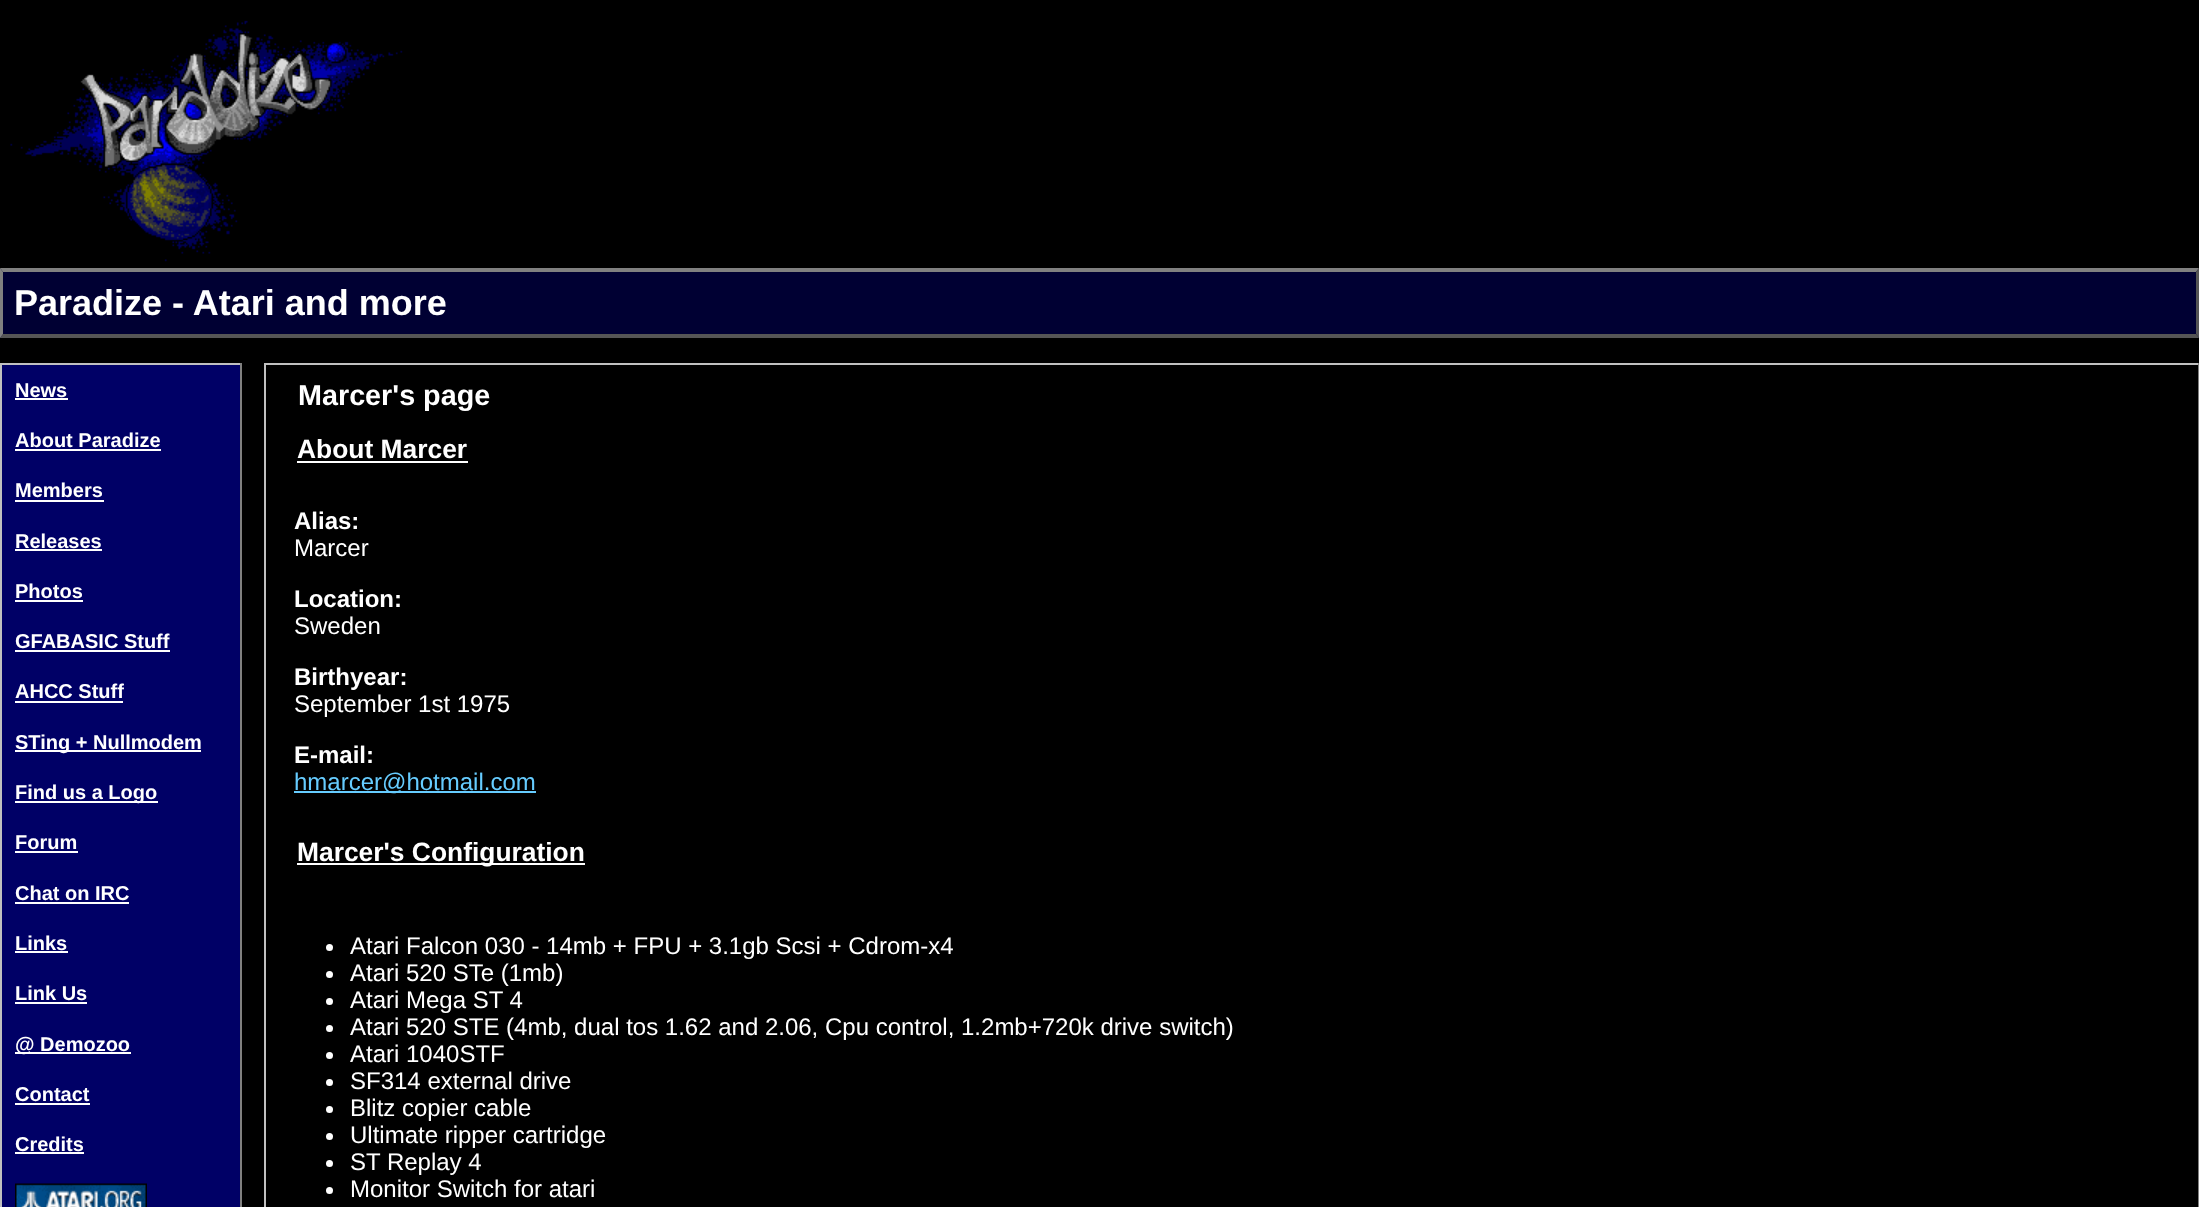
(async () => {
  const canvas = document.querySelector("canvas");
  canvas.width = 2199;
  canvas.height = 1207;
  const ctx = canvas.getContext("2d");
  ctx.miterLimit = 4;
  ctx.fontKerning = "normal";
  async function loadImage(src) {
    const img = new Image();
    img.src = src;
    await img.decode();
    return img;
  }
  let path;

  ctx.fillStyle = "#000000";
  ctx.fillRect(0, 0, 2199, 1207);
  ctx.drawImage(await loadImage("img/1.png"), 10, 20, 393, 242);
  ctx.fillStyle = "#000033";
  ctx.fillRect(0, 269, 2199, 69);
  ctx.fillStyle = "#808080";
  path = new Path2D("M0 268H2199L2196 272H3Z");
  ctx.fill(path);
  ctx.fillStyle = "#555555";
  path = new Path2D("M2199 268V338L2196 334V272Z");
  ctx.fill(path);
  path = new Path2D("M2199 338H0L3 334H2196Z");
  ctx.fill(path);
  ctx.fillStyle = "#808080";
  path = new Path2D("M0 338V268L3 272V334Z");
  ctx.fill(path);
  for (const [x, y, w, h, color] of [
    [2, 365, 238, 842, "#000066"],
    [0, 363, 242, 2, "#c0c0c0"],
    [240, 363, 2, 844, "#808080"],
    [0, 363, 2, 844, "#c0c0c0"],
    [15, 398, 53, 2, "#ffffff"],
    [15, 449, 146, 2, "#ffffff"],
    [15, 500, 89, 2, "#ffffff"],
    [15, 549, 87, 2, "#ffffff"],
    [15, 600, 68, 2, "#ffffff"],
    [15, 650, 155, 2, "#ffffff"],
    [15, 701, 108, 2, "#ffffff"],
    [15, 750, 186, 2, "#ffffff"],
    [15, 801, 143, 2, "#ffffff"],
    [15, 851, 63, 2, "#ffffff"],
    [15, 902, 114, 2, "#ffffff"],
    [15, 951, 53, 2, "#ffffff"],
    [15, 1002, 72, 2, "#ffffff"],
    [15, 1052, 116, 2, "#ffffff"],
    [15, 1103, 75, 2, "#ffffff"],
    [15, 1152, 69, 2, "#ffffff"],
  ]) {
    ctx.fillStyle = color;
    ctx.fillRect(x, y, w, h);
  }
  ctx.drawImage(await loadImage("img/2.png"), 15, 1183, 132, 24);
  for (const [x, y, w, h, color] of [
    [264, 363, 1935, 2, "#c0c0c0"],
    [2198, 363, 1, 844, "#808080"],
    [264, 363, 2, 844, "#c0c0c0"],
    [297, 461, 171, 2, "#ffffff"],
    [294, 791, 242, 2, "#66ccff"],
    [297, 863, 288, 2, "#ffffff"],
  ]) {
    ctx.fillStyle = color;
    ctx.fillRect(x, y, w, h);
  }
  ctx.beginPath();
  ctx.arc(329.5, 947.5, 3.5, 0, Math.PI * 2);
  ctx.fill();
  ctx.beginPath();
  ctx.arc(329.5, 974.5, 3.5, 0, Math.PI * 2);
  ctx.fill();
  ctx.beginPath();
  ctx.arc(329.5, 1001.5, 3.5, 0, Math.PI * 2);
  ctx.fill();
  ctx.beginPath();
  ctx.arc(329.5, 1028.5, 3.5, 0, Math.PI * 2);
  ctx.fill();
  ctx.beginPath();
  ctx.arc(329.5, 1055.5, 3.5, 0, Math.PI * 2);
  ctx.fill();
  ctx.beginPath();
  ctx.arc(329.5, 1082.5, 3.5, 0, Math.PI * 2);
  ctx.fill();
  ctx.beginPath();
  ctx.arc(329.5, 1109.5, 3.5, 0, Math.PI * 2);
  ctx.fill();
  ctx.beginPath();
  ctx.arc(329.5, 1136.5, 3.5, 0, Math.PI * 2);
  ctx.fill();
  ctx.beginPath();
  ctx.arc(329.5, 1163.5, 3.5, 0, Math.PI * 2);
  ctx.fill();
  ctx.beginPath();
  ctx.arc(329.5, 1190.5, 3.5, 0, Math.PI * 2);
  ctx.fill();
  ctx.font = "bold 36px Liberation Sans";
  ctx.fillText("Paradize - Atari and more", 14, 315);
  ctx.font = "bold 20px Liberation Sans";
  for (const [text, x, y] of [
    ["News", 15, 397],
    ["About Paradize", 15, 447],
    ["Members", 15, 497],
    ["Releases", 15, 548],
    ["Photos", 15, 598],
    ["GFABASIC Stuff", 15, 648],
    ["AHCC Stuff", 15, 698],
    ["STing + Nullmodem", 15, 749],
    ["Find us a Logo", 15, 799],
    ["Forum", 15, 849],
    ["Chat on IRC", 15, 900],
    ["Links", 15, 950],
    ["Link Us", 15, 1000],
    ["@ Demozoo", 15, 1051],
    ["Contact", 15, 1101],
    ["Credits", 15, 1151],
  ]) {
    ctx.fillText(text, x, y);
  }
  ctx.font = "bold 28.75px Liberation Sans";
  ctx.fillText("Marcer's page", 298, 405);
  ctx.font = "bold 26.4px Liberation Sans";
  ctx.fillText("About Marcer", 297, 458);
  ctx.font = "bold 24px Liberation Sans";
  ctx.fillText("Alias:", 294, 529);
  ctx.font = "24px Liberation Sans";
  ctx.fillText("Marcer", 294, 556);
  ctx.font = "bold 24px Liberation Sans";
  ctx.fillText("Location:", 294, 607);
  ctx.font = "24px Liberation Sans";
  ctx.fillText("Sweden", 294, 634);
  ctx.font = "bold 24px Liberation Sans";
  ctx.fillText("Birthyear:", 294, 685);
  ctx.font = "24px Liberation Sans";
  ctx.fillText("September 1st 1975", 294, 712);
  ctx.font = "bold 24px Liberation Sans";
  ctx.fillText("E-mail:", 294, 763);
  ctx.font = "24px Liberation Sans";
  ctx.fillStyle = "#66ccff";
  ctx.fillText("hmarcer@hotmail.com", 294, 790);
  ctx.font = "bold 26.4px Liberation Sans";
  ctx.fillStyle = "#ffffff";
  ctx.fillText("Marcer's Configuration", 297, 861);
  ctx.font = "24px Liberation Sans";
  for (const [text, x, y] of [
    ["Atari Falcon 030 - 14mb + FPU + 3.1gb Scsi + Cdrom-x4", 350, 954],
    ["Atari 520 STe (1mb)", 350, 981],
    ["Atari Mega ST 4", 350, 1008],
    ["Atari 520 STE (4mb, dual tos 1.62 and 2.06, Cpu control, 1.2mb+720k drive switch)", 350, 1035],
    ["Atari 1040STF", 350, 1062],
    ["SF314 external drive", 350, 1089],
    ["Blitz copier cable", 350, 1116],
    ["Ultimate ripper cartridge", 350, 1143],
    ["ST Replay 4", 350, 1170],
    ["Monitor Switch for atari", 350, 1197],
  ]) {
    ctx.fillText(text, x, y);
  }
})();
